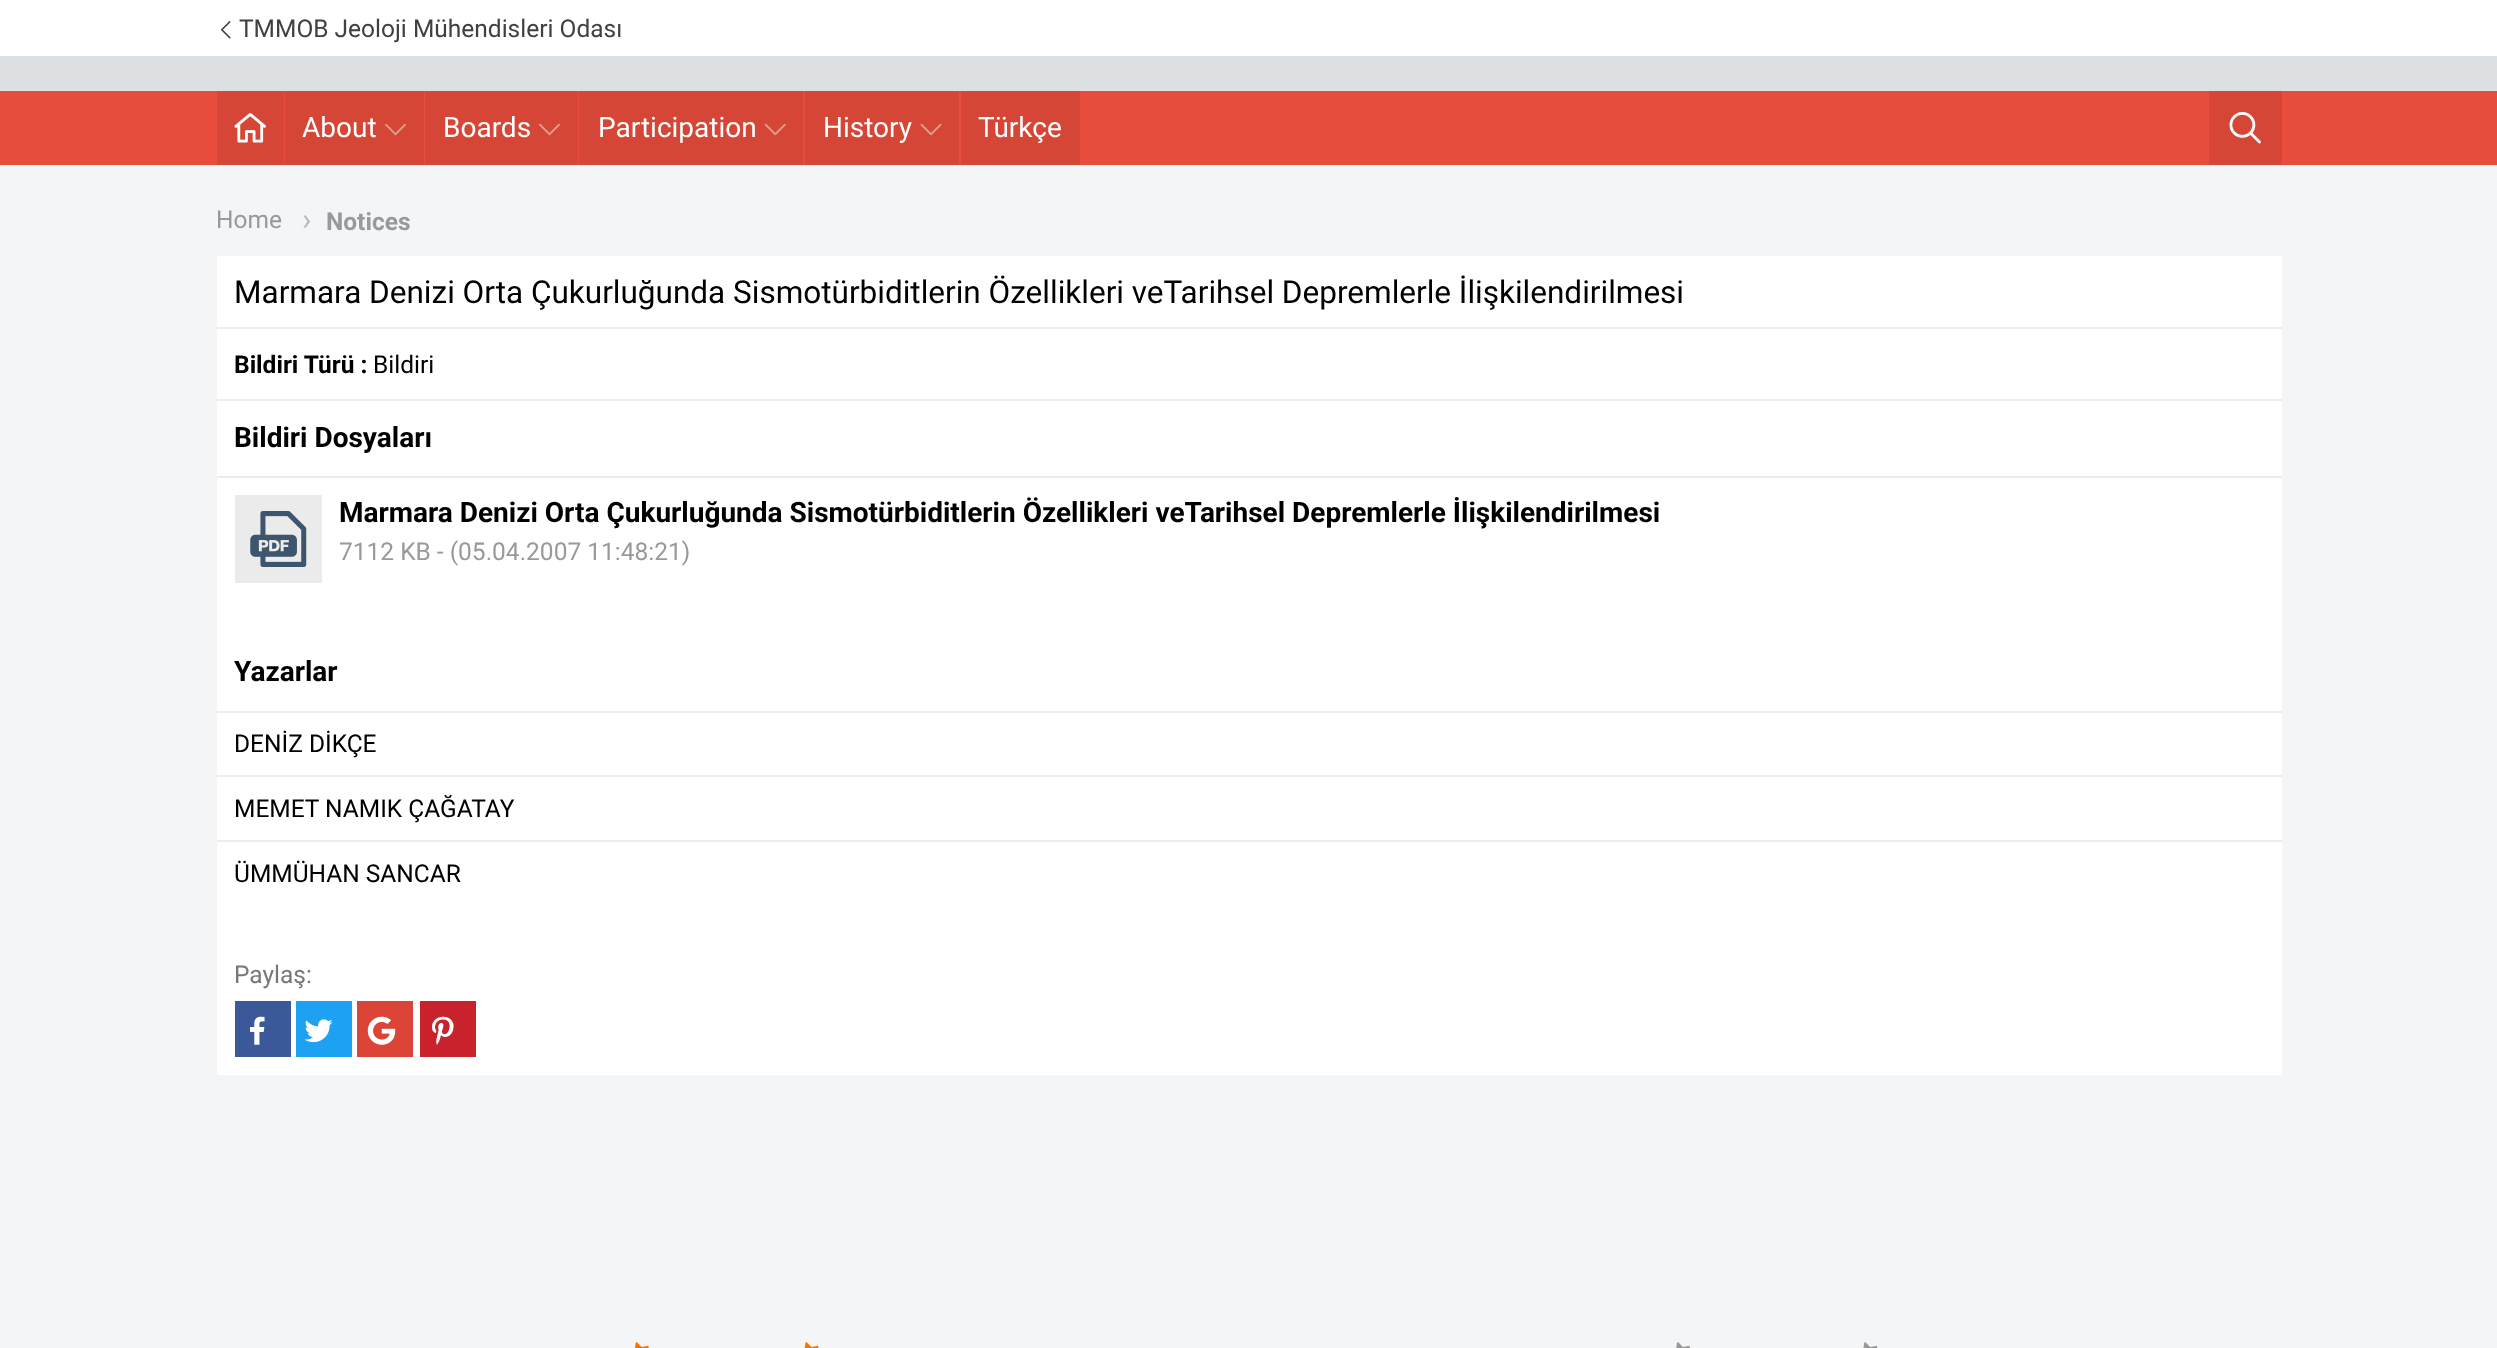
(async () => {
  const canvas = document.querySelector("canvas");
  canvas.width = 2497;
  canvas.height = 1348;
  const ctx = canvas.getContext("2d");
  ctx.miterLimit = 4;
  ctx.fontKerning = "normal";
  async function loadImage(src) {
    const img = new Image();
    img.src = src;
    await img.decode();
    return img;
  }

  ctx.fillStyle = "#ffffff";
  ctx.fillRect(0, 0, 2497, 1348);
  ctx.drawImage(await loadImage("img/1.png"), 221, 21, 10, 18);
  for (const [x, y, w, h, color] of [
    [0, 56, 2497, 35, "#dde0e2"],
    [0, 91, 2497, 74, "#e74c3c"],
    [217, 91, 67, 74, "#d54637"],
  ]) {
    ctx.fillStyle = color;
    ctx.fillRect(x, y, w, h);
  }
  ctx.drawImage(await loadImage("img/2.png"), 234, 113, 32, 30);
  ctx.fillRect(285, 91, 139, 74);
  ctx.drawImage(await loadImage("img/3.png"), 385, 123, 21, 13);
  ctx.fillRect(425, 91, 153, 74);
  ctx.drawImage(await loadImage("img/3.png"), 539, 123, 21, 13);
  ctx.fillRect(579, 91, 224, 74);
  ctx.drawImage(await loadImage("img/4.png"), 764, 123, 22, 13);
  ctx.fillRect(805, 91, 154, 74);
  ctx.drawImage(await loadImage("img/5.png"), 920, 123, 22, 13);
  ctx.fillRect(961, 91, 119, 74);
  ctx.fillRect(2209, 91, 73, 74);
  ctx.drawImage(await loadImage("img/6.png"), 2229, 112, 32, 32);
  for (const [x, y, w, h, color] of [
    [0, 165, 2497, 1183, "#f3f5f7"],
    [217, 256, 2065, 819, "#ffffff"],
    [217, 327, 2065, 2, "#ececec"],
    [217, 399, 2065, 2, "#ececec"],
    [217, 476, 2065, 2, "#ececec"],
    [235, 495, 87, 88, "#ebebeb"],
  ]) {
    ctx.fillStyle = color;
    ctx.fillRect(x, y, w, h);
  }
  ctx.drawImage(await loadImage("img/7.png"), 250, 511, 57, 56);
  for (const [x, y, w, h, color] of [
    [217, 711, 2065, 2, "#ececec"],
    [217, 775, 2065, 2, "#ececec"],
    [217, 840, 2065, 2, "#ececec"],
    [235, 1001, 56, 56, "#3b5998"],
  ]) {
    ctx.fillStyle = color;
    ctx.fillRect(x, y, w, h);
  }
  ctx.drawImage(await loadImage("img/8.png"), 249, 1016, 16, 29);
  ctx.fillStyle = "#1da1f2";
  ctx.fillRect(296, 1001, 56, 56);
  ctx.drawImage(await loadImage("img/9.png"), 304, 1019, 29, 24);
  ctx.fillStyle = "#db4437";
  ctx.fillRect(357, 1001, 56, 56);
  ctx.drawImage(await loadImage("img/10.png"), 367, 1016, 29, 29);
  ctx.fillStyle = "#c8232c";
  ctx.fillRect(420, 1001, 56, 56);
  ctx.drawImage(await loadImage("img/11.png"), 431, 1016, 23, 29);
  ctx.drawImage(await loadImage("img/12.png"), 635, 1342, 14, 6);
  ctx.drawImage(await loadImage("img/13.png"), 804, 1342, 15, 6);
  ctx.drawImage(await loadImage("img/14.png"), 1676, 1342, 14, 6);
  ctx.drawImage(await loadImage("img/15.png"), 1863, 1342, 15, 6);
  ctx.font = "24.5px Roboto";
  ctx.fillStyle = "#404040";
  ctx.fillText("TMMOB Jeoloji Mühendisleri Odası", 239, 37);
  ctx.font = "28px Roboto";
  ctx.fillStyle = "#ffffff";
  for (const [text, x, y] of [
    ["About", 302, 137],
    ["Boards", 443, 137],
    ["Participation", 598, 137],
    ["History", 823, 137],
    ["Türkçe", 978, 137],
  ]) {
    ctx.fillText(text, x, y);
  }
  ctx.font = "24.5px Roboto";
  ctx.fillStyle = "#999999";
  ctx.fillText("Home", 216, 228);
  ctx.font = "31.5px Roboto";
  ctx.fillStyle = "#b6b8b9";
  ctx.fillText("›", 302, 230);
  ctx.font = "bold 24.5px Roboto";
  ctx.fillStyle = "#999999";
  ctx.fillText("Notices", 326, 230);
  ctx.font = "31.5px Roboto";
  ctx.fillStyle = "#000000";
  ctx.fillText("Marmara Denizi Orta Çukurluğunda Sismotürbiditlerin Özellikleri veTarihsel Depremlerle İlişkilendirilmesi", 234, 303);
  ctx.font = "bold 24.5px Roboto";
  ctx.fillText("Bildiri Türü :", 234, 373);
  ctx.font = "24.5px Roboto";
  ctx.fillText("Bildiri", 373, 373);
  ctx.font = "bold 28px Roboto";
  ctx.fillText("Bildiri Dosyaları", 234, 447);
  ctx.fillText("Marmara Denizi Orta Çukurluğunda Sismotürbiditlerin Özellikleri veTarihsel Depremlerle İlişkilendirilmesi", 339, 522);
  ctx.font = "24.5px Roboto";
  ctx.fillStyle = "#999999";
  ctx.fillText("7112 KB - (05.04.2007 11:48:21)", 339, 560);
  ctx.font = "bold 28px Roboto";
  ctx.fillStyle = "#000000";
  ctx.fillText("Yazarlar", 234, 681);
  ctx.font = "24.5px Roboto";
  for (const [text, x, y] of [
    ["DENİZ DİKÇE", 234, 752],
    ["MEMET NAMIK ÇAĞATAY", 234, 817],
    ["ÜMMÜHAN SANCAR", 234, 882],
  ]) {
    ctx.fillText(text, x, y);
  }
  ctx.fillStyle = "#777777";
  ctx.fillText("Paylaş:", 234, 983);
})();
